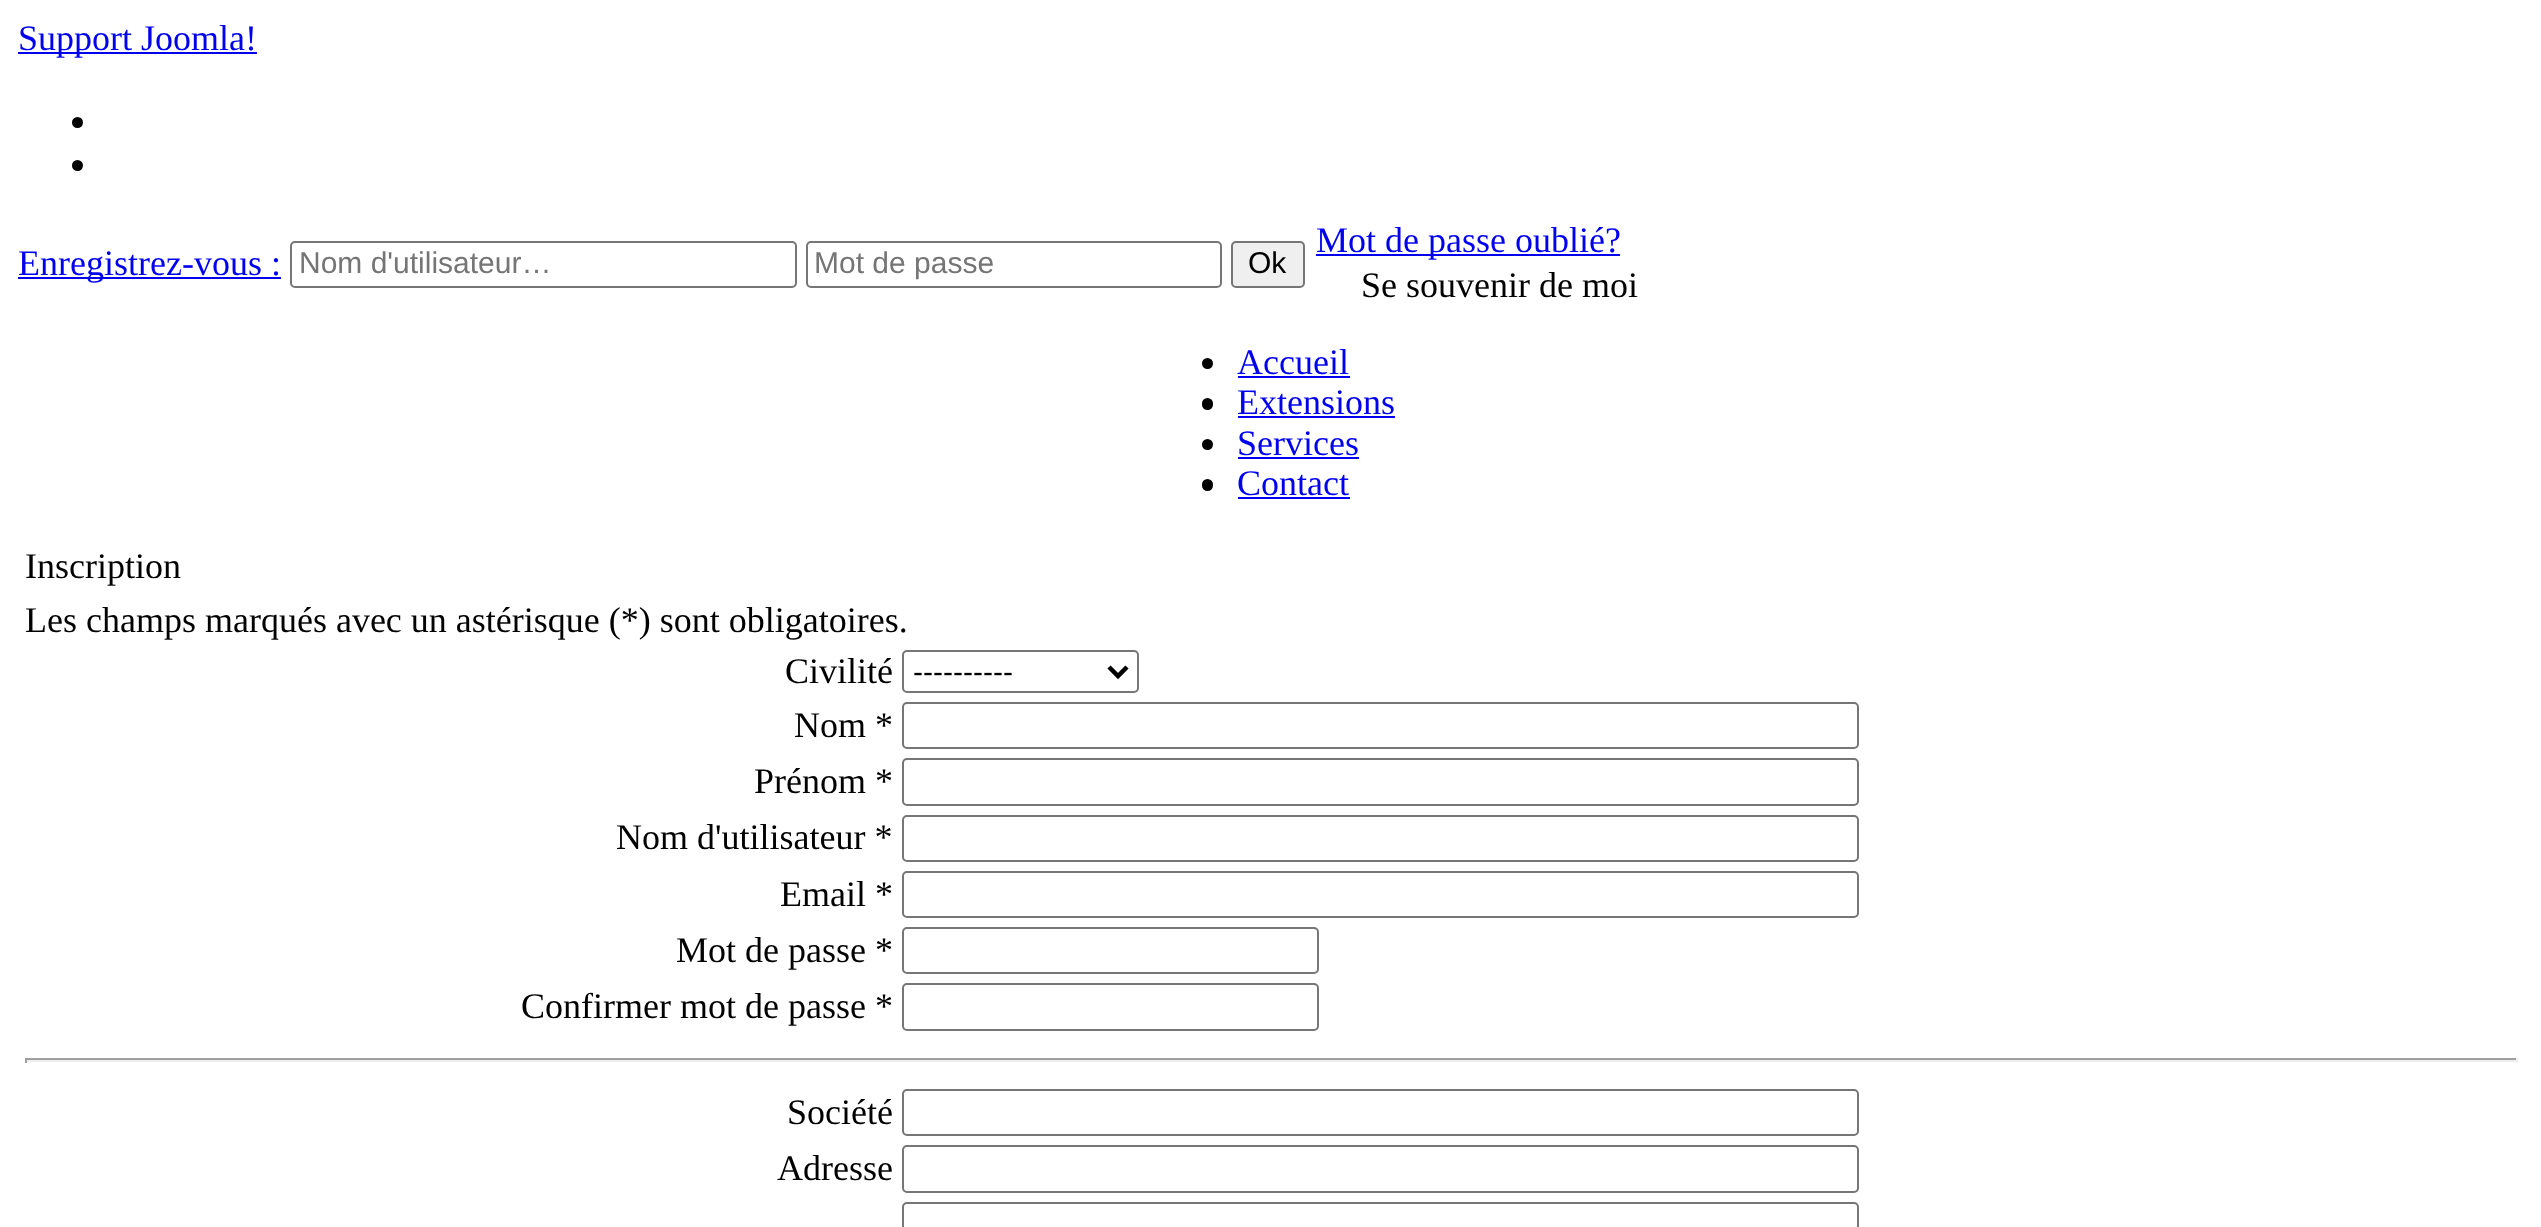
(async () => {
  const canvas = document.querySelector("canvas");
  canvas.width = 2541;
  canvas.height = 1227;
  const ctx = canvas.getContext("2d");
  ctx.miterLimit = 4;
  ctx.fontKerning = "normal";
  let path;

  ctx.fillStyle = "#ffffff";
  ctx.fillRect(0, 0, 2541, 1227);
  ctx.fillStyle = "#0000ee";
  ctx.fillRect(18, 52, 239, 2);
  ctx.fillStyle = "#000000";
  ctx.beginPath();
  ctx.arc(77.5, 122.5, 5.5, 0, Math.PI * 2);
  ctx.fill();
  ctx.beginPath();
  ctx.arc(77.5, 165.5, 5.5, 0, Math.PI * 2);
  ctx.fill();
  ctx.fillStyle = "#0000ee";
  ctx.fillRect(18, 277, 263, 2);
  ctx.beginPath();
  ctx.roundRect(291, 242, 505, 45, 4);
  ctx.strokeStyle = "#767676";
  ctx.lineWidth = 2;
  ctx.stroke();
  ctx.beginPath();
  ctx.roundRect(807, 242, 414, 45, 4);
  ctx.stroke();
  ctx.fillStyle = "#efefef";
  ctx.beginPath();
  ctx.roundRect(1232, 242, 72, 45, 4);
  ctx.fill();
  ctx.stroke();
  ctx.fillStyle = "#0000ee";
  ctx.fillRect(1316, 254, 304, 2);
  ctx.fillStyle = "#000000";
  ctx.beginPath();
  ctx.arc(1207.5, 363.5, 5.5, 0, Math.PI * 2);
  ctx.fill();
  ctx.fillStyle = "#0000ee";
  ctx.fillRect(1238, 376, 112, 2);
  ctx.fillStyle = "#000000";
  ctx.beginPath();
  ctx.roundRect(1202, 398, 11, 12, 5.5);
  ctx.fill();
  ctx.fillStyle = "#0000ee";
  ctx.fillRect(1238, 416, 157, 2);
  ctx.fillStyle = "#000000";
  ctx.beginPath();
  ctx.arc(1207.5, 444.5, 5.5, 0, Math.PI * 2);
  ctx.fill();
  ctx.fillStyle = "#0000ee";
  ctx.fillRect(1238, 457, 121, 2);
  ctx.fillStyle = "#000000";
  ctx.beginPath();
  ctx.roundRect(1202, 479, 11, 12, 5.5);
  ctx.fill();
  ctx.fillStyle = "#0000ee";
  ctx.fillRect(1238, 497, 112, 2);
  ctx.beginPath();
  ctx.roundRect(903, 651, 235, 41, 4);
  ctx.stroke();
  path = new Path2D("M1109 667L1118 676L1127 667");
  ctx.strokeStyle = "#000000";
  ctx.lineWidth = 4.5;
  ctx.stroke(path);
  ctx.beginPath();
  ctx.roundRect(903, 703, 955, 45, 4);
  ctx.strokeStyle = "#767676";
  ctx.lineWidth = 2;
  ctx.stroke();
  ctx.beginPath();
  ctx.roundRect(903, 759, 955, 46, 4);
  ctx.stroke();
  ctx.beginPath();
  ctx.roundRect(903, 816, 955, 45, 4);
  ctx.stroke();
  ctx.beginPath();
  ctx.roundRect(903, 872, 955, 45, 4);
  ctx.stroke();
  ctx.beginPath();
  ctx.roundRect(903, 928, 415, 45, 4);
  ctx.stroke();
  ctx.beginPath();
  ctx.roundRect(903, 984, 415, 46, 4);
  ctx.stroke();
  for (const [x, y, w, h, color] of [
    [25, 1058, 2493, 2, "#9f9f9f"],
    [2516, 1058, 2, 5, "#eeeeee"],
    [25, 1060, 2493, 2, "#eeeeee"],
    [25, 1058, 2, 5, "#9f9f9f"],
  ]) {
    ctx.fillStyle = color;
    ctx.fillRect(x, y, w, h);
  }
  ctx.beginPath();
  ctx.roundRect(903, 1090, 955, 45, 4);
  ctx.stroke();
  ctx.beginPath();
  ctx.roundRect(903, 1146, 955, 46, 4);
  ctx.stroke();
  ctx.beginPath();
  ctx.roundRect(903, 1203, 955, 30, 4);
  ctx.stroke();
  ctx.font = "36px Liberation Serif";
  ctx.fillStyle = "#0000ee";
  ctx.fillText("Support Joomla!", 18, 50);
  ctx.fillText("Enregistrez-vous :", 18, 275);
  ctx.font = "30px Liberation Sans";
  ctx.fillStyle = "#757575";
  ctx.fillText("Nom d'utilisateur…", 299, 273);
  ctx.fillText("Mot de passe", 814, 273);
  ctx.fillStyle = "#000000";
  ctx.fillText("Ok", 1248, 273);
  ctx.font = "36px Liberation Serif";
  ctx.fillStyle = "#0000ee";
  ctx.fillText("Mot de passe oublié?", 1316, 252);
  ctx.fillStyle = "#000000";
  ctx.fillText("Se souvenir de moi", 1361, 297);
  ctx.fillStyle = "#0000ee";
  for (const [text, x, y] of [
    ["Accueil", 1237, 374],
    ["Extensions", 1237, 414],
    ["Services", 1237, 455],
    ["Contact", 1237, 495],
  ]) {
    ctx.fillText(text, x, y);
  }
  ctx.fillStyle = "#000000";
  for (const [text, x, y] of [
    ["Inscription", 25, 578],
    ["Les champs marqués avec un astérisque (*) sont obligatoires.", 25, 632],
    ["Civilité", 785, 683],
  ]) {
    ctx.fillText(text, x, y);
  }
  ctx.font = "30px Liberation Sans";
  ctx.fillText("----------", 913, 682);
  ctx.font = "36px Liberation Serif";
  for (const [text, x, y] of [
    ["Nom *", 794, 737],
    ["Prénom *", 754, 793],
    ["Nom d'utilisateur *", 616, 849],
    ["Email *", 780, 906],
    ["Mot de passe *", 676, 962],
    ["Confirmer mot de passe *", 521, 1018],
    ["Société", 787, 1124],
    ["Adresse", 777, 1180],
  ]) {
    ctx.fillText(text, x, y);
  }
})();
